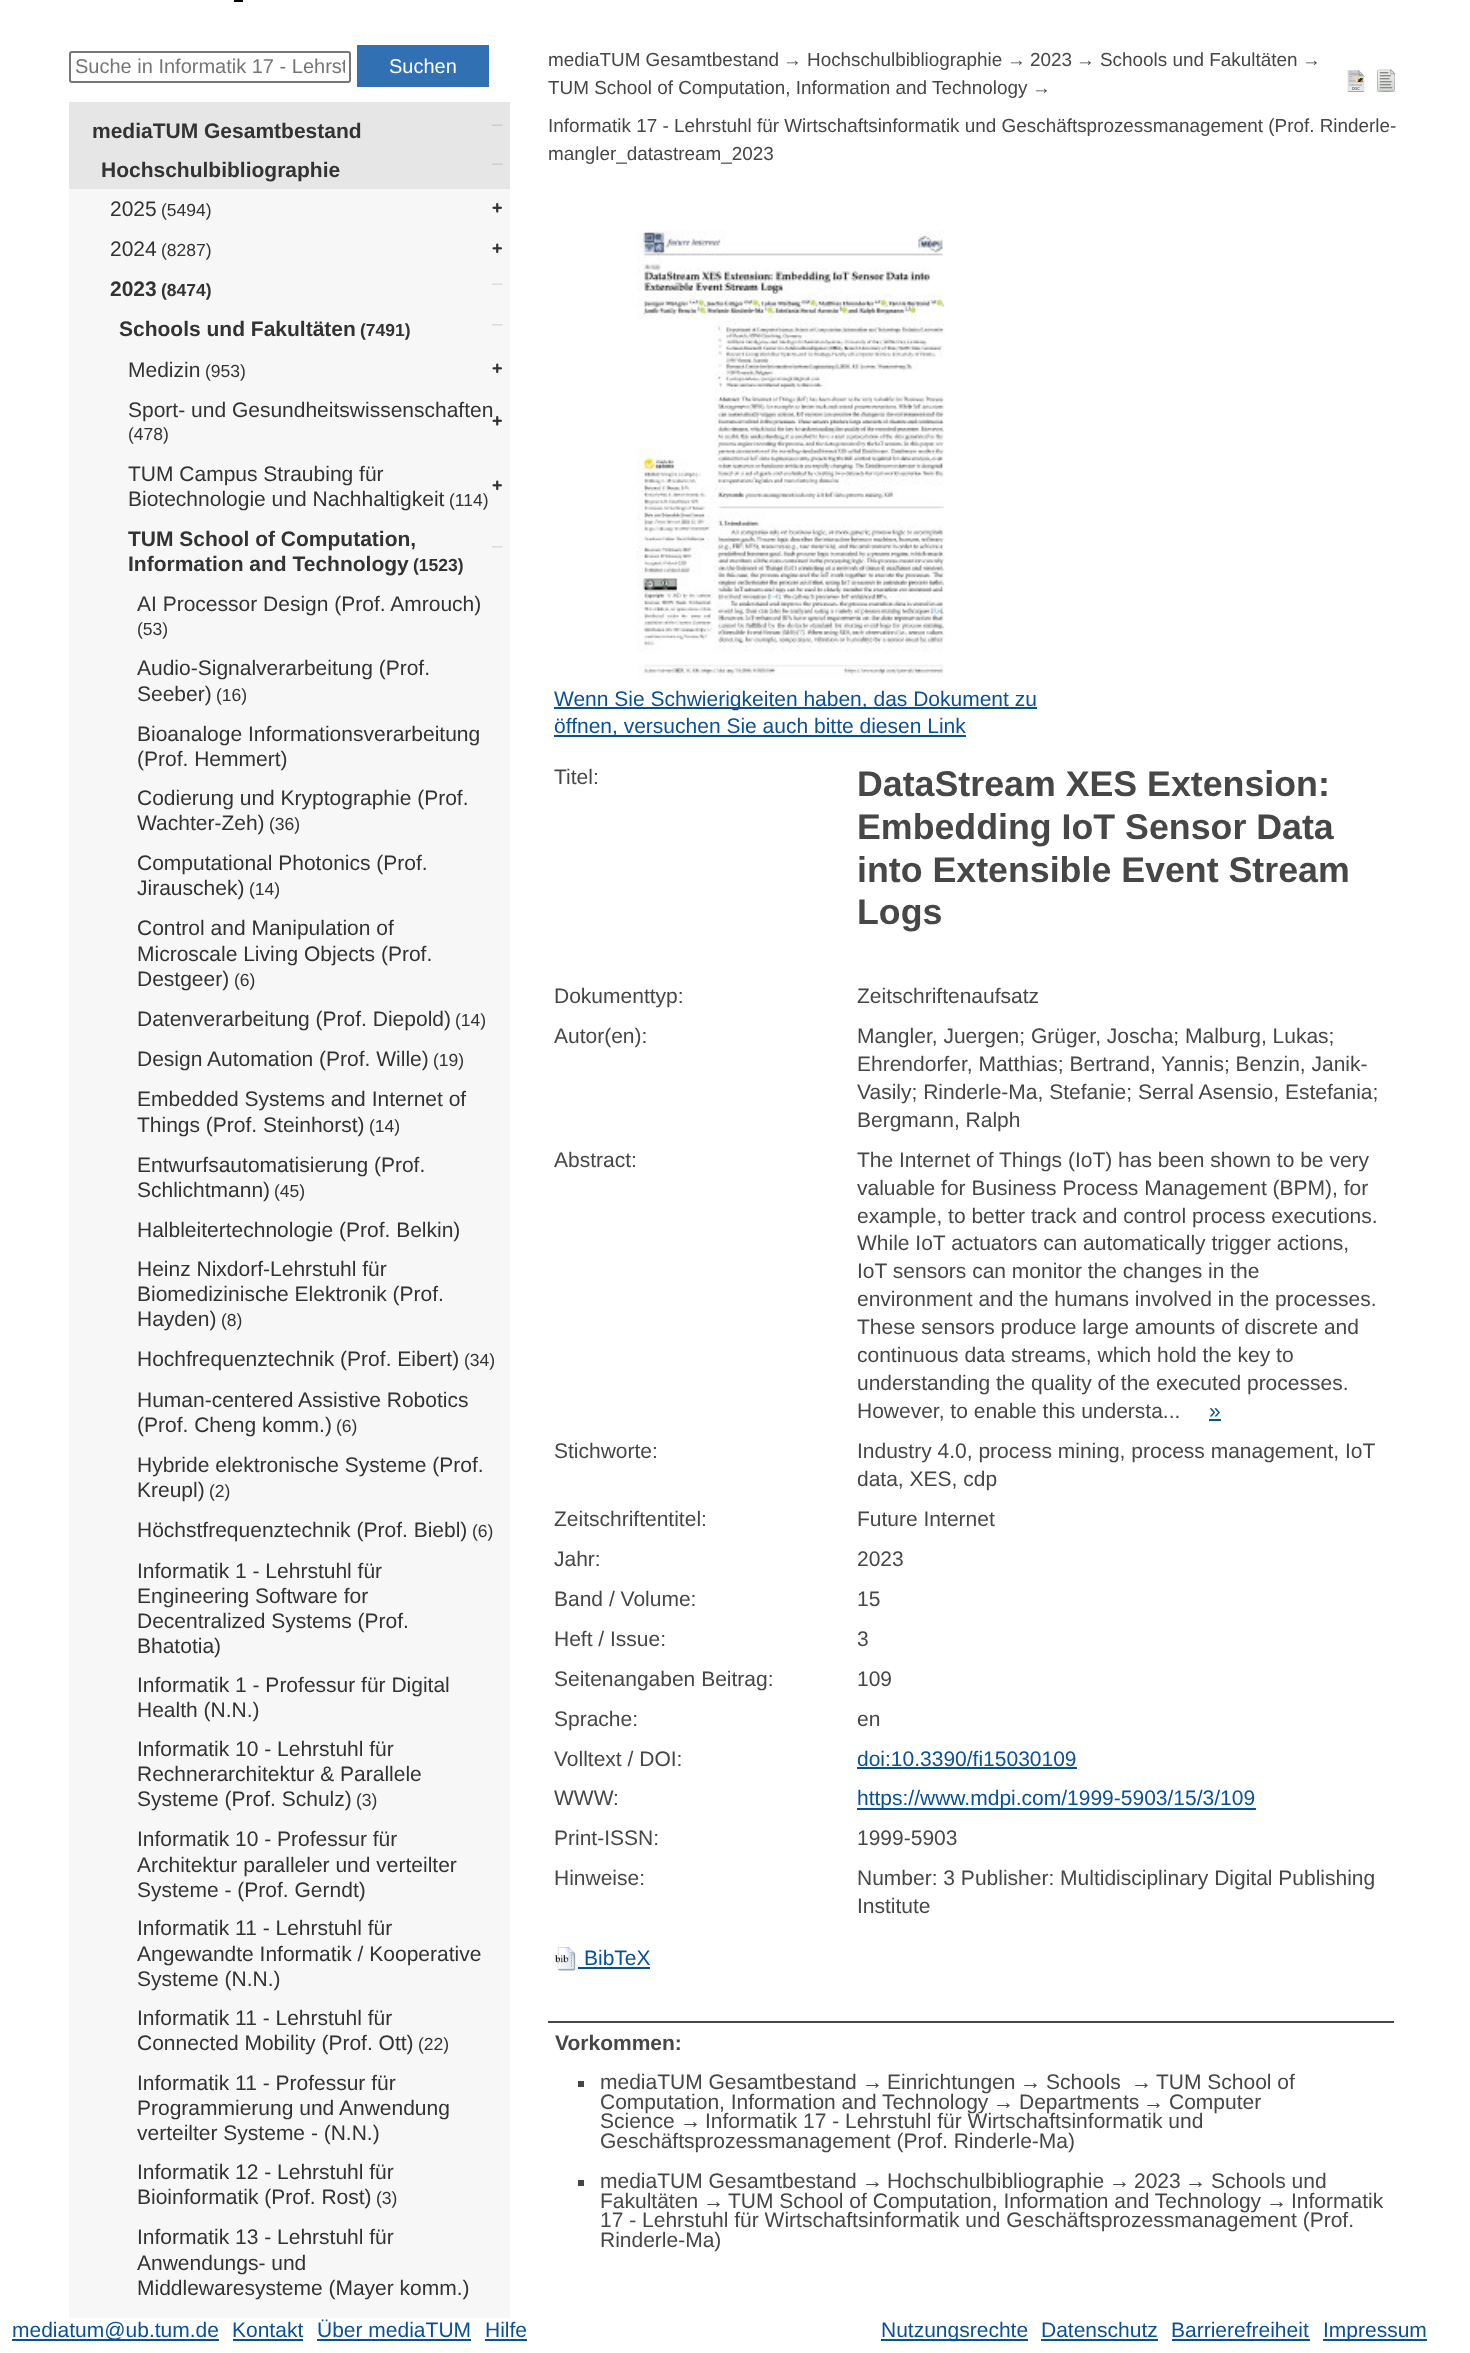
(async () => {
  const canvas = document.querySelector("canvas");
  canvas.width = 1470;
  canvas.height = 2353;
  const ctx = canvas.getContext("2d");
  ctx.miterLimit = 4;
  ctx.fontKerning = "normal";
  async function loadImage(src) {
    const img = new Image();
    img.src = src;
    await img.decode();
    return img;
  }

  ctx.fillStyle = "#ffffff";
  ctx.fillRect(0, 0, 1470, 2353);
  ctx.fillStyle = "#000000";
  ctx.fillRect(234, 0, 9, 2);
  ctx.beginPath();
  ctx.roundRect(70, 52, 280, 30, 2);
  ctx.strokeStyle = "#767676";
  ctx.lineWidth = 2;
  ctx.stroke();
  ctx.fillStyle = "#3070b3";
  ctx.fillRect(357, 45, 132, 42);
  ctx.fillStyle = "#e6e6e6";
  ctx.fillRect(69, 102, 441, 87);
  ctx.drawImage(await loadImage("img/1.png"), 492, 124, 11, 2);
  ctx.drawImage(await loadImage("img/2.png"), 492, 163, 11, 2);
  ctx.fillStyle = "#f7f7f7";
  ctx.fillRect(69, 189, 441, 2129);
  ctx.drawImage(await loadImage("img/3.png"), 492, 203, 10, 10);
  ctx.drawImage(await loadImage("img/4.png"), 492, 243, 10, 11);
  ctx.drawImage(await loadImage("img/5.png"), 492, 283, 11, 2);
  ctx.drawImage(await loadImage("img/6.png"), 492, 324, 11, 2);
  ctx.drawImage(await loadImage("img/4.png"), 492, 363, 10, 11);
  ctx.drawImage(await loadImage("img/3.png"), 492, 416, 10, 10);
  ctx.drawImage(await loadImage("img/4.png"), 492, 480, 10, 11);
  ctx.drawImage(await loadImage("img/6.png"), 492, 546, 11, 2);
  ctx.drawImage(await loadImage("img/7.png"), 1347, 70, 18, 22);
  ctx.drawImage(await loadImage("img/8.png"), 1375, 69, 22, 23);
  ctx.drawImage(await loadImage("img/9.png"), 636, 230, 309, 448);
  for (const [x, y, w, h, color] of [
    [554, 707, 483, 2, "#0a5096"],
    [554, 735, 412, 2, "#0a5096"],
    [1209, 1419, 12, 2, "#0a5096"],
    [857, 1767, 220, 2, "#0a5096"],
    [857, 1808, 399, 2, "#0a5096"],
  ]) {
    ctx.fillStyle = color;
    ctx.fillRect(x, y, w, h);
  }
  ctx.drawImage(await loadImage("img/10.png"), 555, 1947, 21, 24);
  for (const [x, y, w, h, color] of [
    [578, 1967, 72, 2, "#0a5096"],
    [548, 2021, 846, 2, "#474747"],
    [578, 2081, 6, 6, "#474747"],
    [578, 2180, 6, 6, "#474747"],
    [12, 2339, 207, 2, "#0a5096"],
    [233, 2339, 70, 2, "#0a5096"],
    [317, 2339, 154, 2, "#0a5096"],
    [485, 2339, 42, 2, "#0a5096"],
    [881, 2339, 147, 2, "#0a5096"],
    [1041, 2339, 117, 2, "#0a5096"],
    [1172, 2339, 138, 2, "#0a5096"],
    [1323, 2339, 104, 2, "#0a5096"],
  ]) {
    ctx.fillStyle = color;
    ctx.fillRect(x, y, w, h);
  }
  ctx.save();
  ctx.beginPath();
  ctx.rect(75, 56, 270, 22);
  ctx.clip();
  ctx.font = "20px Liberation Sans";
  ctx.fillStyle = "#757575";
  ctx.fillText("Suche in Informatik 17 - Lehrst", 75, 73);
  ctx.restore();
  ctx.font = "20px Liberation Sans";
  ctx.fillStyle = "#ffffff";
  ctx.fillText("Suchen", 389, 73);
  ctx.font = "bold 21px Liberation Sans";
  ctx.fillStyle = "#333333";
  ctx.fillText("mediaTUM Gesamtbestand", 92, 138);
  ctx.fillText("Hochschulbibliographie", 101, 177);
  ctx.font = "21px Liberation Sans";
  ctx.fillText("2025", 110, 216);
  ctx.font = "17.5px Liberation Sans";
  ctx.fillText("(5494)", 161, 216);
  ctx.font = "21px Liberation Sans";
  ctx.fillText("2024", 110, 256);
  ctx.font = "17.5px Liberation Sans";
  ctx.fillText("(8287)", 161, 256);
  ctx.font = "bold 21px Liberation Sans";
  ctx.fillText("2023", 110, 296);
  ctx.font = "bold 17.5px Liberation Sans";
  ctx.fillText("(8474)", 161, 296);
  ctx.font = "bold 21px Liberation Sans";
  ctx.fillText("Schools und Fakultäten", 119, 336);
  ctx.font = "bold 17.5px Liberation Sans";
  ctx.fillText("(7491)", 360, 336);
  ctx.font = "21px Liberation Sans";
  ctx.fillText("Medizin", 128, 377);
  ctx.font = "17.5px Liberation Sans";
  ctx.fillText("(953)", 205, 377);
  ctx.font = "21px Liberation Sans";
  ctx.fillText("Sport- und Gesundheitswissenschaften", 128, 417);
  ctx.font = "17.5px Liberation Sans";
  ctx.fillText("(478)", 128, 440);
  ctx.font = "21px Liberation Sans";
  ctx.fillText("TUM Campus Straubing für", 128, 481);
  ctx.fillText("Biotechnologie und Nachhaltigkeit", 128, 506);
  ctx.font = "17.5px Liberation Sans";
  ctx.fillText("(114)", 449, 506);
  ctx.font = "bold 21px Liberation Sans";
  ctx.fillText("TUM School of Computation,", 128, 546);
  ctx.fillText("Information and Technology", 128, 571);
  ctx.font = "bold 17.5px Liberation Sans";
  ctx.fillText("(1523)", 413, 571);
  ctx.font = "21px Liberation Sans";
  ctx.fillText("AI Processor Design (Prof. Amrouch)", 137, 611);
  ctx.font = "17.5px Liberation Sans";
  ctx.fillText("(53)", 137, 635);
  ctx.font = "21px Liberation Sans";
  ctx.fillText("Audio-Signalverarbeitung (Prof.", 137, 675);
  ctx.fillText("Seeber)", 137, 701);
  ctx.font = "17.5px Liberation Sans";
  ctx.fillText("(16)", 216, 701);
  ctx.font = "21px Liberation Sans";
  for (const [text, x, y] of [
    ["Bioanaloge Informationsverarbeitung", 137, 741],
    ["(Prof. Hemmert)", 137, 766],
    ["Codierung und Kryptographie (Prof.", 137, 805],
    ["Wachter-Zeh)", 137, 830],
  ]) {
    ctx.fillText(text, x, y);
  }
  ctx.font = "17.5px Liberation Sans";
  ctx.fillText("(36)", 269, 830);
  ctx.font = "21px Liberation Sans";
  ctx.fillText("Computational Photonics (Prof.", 137, 870);
  ctx.fillText("Jirauschek)", 137, 895);
  ctx.font = "17.5px Liberation Sans";
  ctx.fillText("(14)", 249, 895);
  ctx.font = "21px Liberation Sans";
  for (const [text, x, y] of [
    ["Control and Manipulation of", 137, 935],
    ["Microscale Living Objects (Prof.", 137, 961],
    ["Destgeer)", 137, 986],
  ]) {
    ctx.fillText(text, x, y);
  }
  ctx.font = "17.5px Liberation Sans";
  ctx.fillText("(6)", 234, 986);
  ctx.font = "21px Liberation Sans";
  ctx.fillText("Datenverarbeitung (Prof. Diepold)", 137, 1026);
  ctx.font = "17.5px Liberation Sans";
  ctx.fillText("(14)", 455, 1026);
  ctx.font = "21px Liberation Sans";
  ctx.fillText("Design Automation (Prof. Wille)", 137, 1066);
  ctx.font = "17.5px Liberation Sans";
  ctx.fillText("(19)", 433, 1066);
  ctx.font = "21px Liberation Sans";
  ctx.fillText("Embedded Systems and Internet of", 137, 1106);
  ctx.fillText("Things (Prof. Steinhorst)", 137, 1132);
  ctx.font = "17.5px Liberation Sans";
  ctx.fillText("(14)", 369, 1132);
  ctx.font = "21px Liberation Sans";
  ctx.fillText("Entwurfsautomatisierung (Prof.", 137, 1172);
  ctx.fillText("Schlichtmann)", 137, 1197);
  ctx.font = "17.5px Liberation Sans";
  ctx.fillText("(45)", 274, 1197);
  ctx.font = "21px Liberation Sans";
  for (const [text, x, y] of [
    ["Halbleitertechnologie (Prof. Belkin)", 137, 1237],
    ["Heinz Nixdorf-Lehrstuhl für", 137, 1276],
    ["Biomedizinische Elektronik (Prof.", 137, 1301],
    ["Hayden)", 137, 1326],
  ]) {
    ctx.fillText(text, x, y);
  }
  ctx.font = "17.5px Liberation Sans";
  ctx.fillText("(8)", 221, 1326);
  ctx.font = "21px Liberation Sans";
  ctx.fillText("Hochfrequenztechnik (Prof. Eibert)", 137, 1366);
  ctx.font = "17.5px Liberation Sans";
  ctx.fillText("(34)", 464, 1366);
  ctx.font = "21px Liberation Sans";
  ctx.fillText("Human-centered Assistive Robotics", 137, 1407);
  ctx.fillText("(Prof. Cheng komm.)", 137, 1432);
  ctx.font = "17.5px Liberation Sans";
  ctx.fillText("(6)", 336, 1432);
  ctx.font = "21px Liberation Sans";
  ctx.fillText("Hybride elektronische Systeme (Prof.", 137, 1472);
  ctx.fillText("Kreupl)", 137, 1497);
  ctx.font = "17.5px Liberation Sans";
  ctx.fillText("(2)", 209, 1497);
  ctx.font = "21px Liberation Sans";
  ctx.fillText("Höchstfrequenztechnik (Prof. Biebl)", 137, 1537);
  ctx.font = "17.5px Liberation Sans";
  ctx.fillText("(6)", 472, 1537);
  ctx.font = "21px Liberation Sans";
  for (const [text, x, y] of [
    ["Informatik 1 - Lehrstuhl für", 137, 1578],
    ["Engineering Software for", 137, 1603],
    ["Decentralized Systems (Prof.", 137, 1628],
    ["Bhatotia)", 137, 1653],
    ["Informatik 1 - Professur für Digital", 137, 1692],
    ["Health (N.N.)", 137, 1717],
    ["Informatik 10 - Lehrstuhl für", 137, 1756],
    ["Rechnerarchitektur & Parallele", 137, 1781],
    ["Systeme (Prof. Schulz)", 137, 1806],
  ]) {
    ctx.fillText(text, x, y);
  }
  ctx.font = "17.5px Liberation Sans";
  ctx.fillText("(3)", 356, 1806);
  ctx.font = "21px Liberation Sans";
  for (const [text, x, y] of [
    ["Informatik 10 - Professur für", 137, 1846],
    ["Architektur paralleler und verteilter", 137, 1872],
    ["Systeme - (Prof. Gerndt)", 137, 1897],
    ["Informatik 11 - Lehrstuhl für", 137, 1935],
    ["Angewandte Informatik / Kooperative", 137, 1961],
    ["Systeme (N.N.)", 137, 1986],
    ["Informatik 11 - Lehrstuhl für", 137, 2025],
    ["Connected Mobility (Prof. Ott)", 137, 2050],
  ]) {
    ctx.fillText(text, x, y);
  }
  ctx.font = "17.5px Liberation Sans";
  ctx.fillText("(22)", 418, 2050);
  ctx.font = "21px Liberation Sans";
  for (const [text, x, y] of [
    ["Informatik 11 - Professur für", 137, 2090],
    ["Programmierung und Anwendung", 137, 2115],
    ["verteilter Systeme - (N.N.)", 137, 2140],
    ["Informatik 12 - Lehrstuhl für", 137, 2179],
    ["Bioinformatik (Prof. Rost)", 137, 2204],
  ]) {
    ctx.fillText(text, x, y);
  }
  ctx.font = "17.5px Liberation Sans";
  ctx.fillText("(3)", 376, 2204);
  ctx.font = "21px Liberation Sans";
  for (const [text, x, y] of [
    ["Informatik 13 - Lehrstuhl für", 137, 2244],
    ["Anwendungs- und", 137, 2270],
    ["Middlewaresysteme (Mayer komm.)", 137, 2295],
  ]) {
    ctx.fillText(text, x, y);
  }
  ctx.font = "18.9px Liberation Sans";
  ctx.fillStyle = "#474747";
  for (const [text, x, y] of [
    ["mediaTUM Gesamtbestand", 548, 66],
    ["→", 783, 66],
    ["Hochschulbibliographie", 807, 66],
    ["→", 1007, 66],
    ["2023", 1030, 66],
    ["→", 1076, 66],
    ["Schools und Fakultäten", 1100, 66],
    ["→", 1302, 66],
    ["TUM School of Computation, Information and Technology", 548, 94],
    ["→", 1032, 94],
    ["Informatik 17 - Lehrstuhl für Wirtschaftsinformatik und Geschäftsprozessmanagement (Prof. Rinderle-", 548, 132],
    ["mangler_datastream_2023", 548, 160],
  ]) {
    ctx.fillText(text, x, y);
  }
  ctx.font = "21px Liberation Sans";
  ctx.fillStyle = "#0a5096";
  ctx.fillText("Wenn Sie Schwierigkeiten haben, das Dokument zu", 554, 706);
  ctx.fillText("öffnen, versuchen Sie auch bitte diesen Link", 554, 733);
  ctx.fillStyle = "#474747";
  ctx.fillText("Titel:", 554, 784);
  ctx.font = "bold 35.75px Liberation Sans";
  for (const [text, x, y] of [
    ["DataStream XES Extension:", 857, 796],
    ["Embedding IoT Sensor Data", 857, 839],
    ["into Extensible Event Stream", 857, 882],
    ["Logs", 857, 924],
  ]) {
    ctx.fillText(text, x, y);
  }
  ctx.font = "21px Liberation Sans";
  for (const [text, x, y] of [
    ["Dokumenttyp:", 554, 1003],
    ["Zeitschriftenaufsatz", 857, 1003],
    ["Autor(en):", 554, 1043],
    ["Mangler, Juergen; Grüger, Joscha; Malburg, Lukas;", 857, 1043],
    ["Ehrendorfer, Matthias; Bertrand, Yannis; Benzin, Janik-", 857, 1071],
    ["Vasily; Rinderle-Ma, Stefanie; Serral Asensio, Estefania;", 857, 1099],
    ["Bergmann, Ralph", 857, 1127],
    ["Abstract:", 554, 1167],
    ["The Internet of Things (IoT) has been shown to be very", 857, 1167],
    ["valuable for Business Process Management (BPM), for", 857, 1195],
    ["example, to better track and control process executions.", 857, 1223],
    ["While IoT actuators can automatically trigger actions,", 857, 1250],
    ["IoT sensors can monitor the changes in the", 857, 1278],
    ["environment and the humans involved in the processes.", 857, 1306],
    ["These sensors produce large amounts of discrete and", 857, 1334],
    ["continuous data streams, which hold the key to", 857, 1362],
    ["understanding the quality of the executed processes.", 857, 1390],
    ["However, to enable this understa...", 857, 1418],
  ]) {
    ctx.fillText(text, x, y);
  }
  ctx.fillStyle = "#0a5096";
  ctx.fillText("»", 1209, 1418);
  ctx.fillStyle = "#474747";
  for (const [text, x, y] of [
    ["Stichworte:", 554, 1458],
    ["Industry 4.0, process mining, process management, IoT", 857, 1458],
    ["data, XES, cdp", 857, 1486],
    ["Zeitschriftentitel:", 554, 1526],
    ["Future Internet", 857, 1526],
    ["Jahr:", 554, 1566],
    ["2023", 857, 1566],
    ["Band / Volume:", 554, 1606],
    ["15", 857, 1606],
    ["Heft / Issue:", 554, 1646],
    ["3", 857, 1646],
    ["Seitenangaben Beitrag:", 554, 1686],
    ["109", 857, 1686],
    ["Sprache:", 554, 1726],
    ["en", 857, 1726],
    ["Volltext / DOI:", 554, 1766],
  ]) {
    ctx.fillText(text, x, y);
  }
  ctx.fillStyle = "#0a5096";
  ctx.fillText("doi:10.3390/fi15030109", 857, 1766);
  ctx.fillStyle = "#474747";
  ctx.fillText("WWW:", 554, 1805);
  ctx.fillStyle = "#0a5096";
  ctx.fillText("https://www.mdpi.com/1999-5903/15/3/109", 857, 1805);
  ctx.fillStyle = "#474747";
  for (const [text, x, y] of [
    ["Print-ISSN:", 554, 1845],
    ["1999-5903", 857, 1845],
    ["Hinweise:", 554, 1885],
    ["Number: 3 Publisher: Multidisciplinary Digital Publishing", 857, 1885],
    ["Institute", 857, 1913],
  ]) {
    ctx.fillText(text, x, y);
  }
  ctx.fillStyle = "#0a5096";
  ctx.fillText("BibTeX", 584, 1965);
  ctx.font = "bold 21px Liberation Sans";
  ctx.fillStyle = "#474747";
  ctx.fillText("Vorkommen:", 555, 2050);
  ctx.font = "21px Liberation Sans";
  for (const [text, x, y] of [
    ["mediaTUM Gesamtbestand", 600, 2089],
    ["→", 862, 2089],
    ["Einrichtungen", 887, 2089],
    ["→", 1020, 2089],
    ["Schools", 1046, 2089],
    ["→", 1131, 2089],
    ["TUM School of", 1156, 2089],
    ["Computation, Information and Technology", 600, 2109],
    ["→", 993, 2109],
    ["Departments", 1019, 2109],
    ["→", 1143, 2109],
    ["Computer", 1169, 2109],
    ["Science", 600, 2128],
    ["→", 680, 2128],
    ["Informatik 17 - Lehrstuhl für Wirtschaftsinformatik und", 705, 2128],
    ["Geschäftsprozessmanagement (Prof. Rinderle-Ma)", 600, 2148],
    ["mediaTUM Gesamtbestand", 600, 2188],
    ["→", 862, 2188],
    ["Hochschulbibliographie", 887, 2188],
    ["→", 1109, 2188],
    ["2023", 1134, 2188],
    ["→", 1185, 2188],
    ["Schools und", 1211, 2188],
    ["Fakultäten", 600, 2208],
    ["→", 703, 2208],
    ["TUM School of Computation, Information and Technology", 728, 2208],
    ["→", 1266, 2208],
    ["Informatik", 1291, 2208],
    ["17 - Lehrstuhl für Wirtschaftsinformatik und Geschäftsprozessmanagement (Prof.", 600, 2227],
    ["Rinderle-Ma)", 600, 2247],
  ]) {
    ctx.fillText(text, x, y);
  }
  ctx.fillStyle = "#0a5096";
  for (const [text, x, y] of [
    ["mediatum@ub.tum.de", 12, 2337],
    ["Kontakt", 232, 2337],
    ["Über mediaTUM", 317, 2337],
    ["Hilfe", 485, 2337],
    ["Nutzungsrechte", 881, 2337],
    ["Datenschutz", 1041, 2337],
    ["Barrierefreiheit", 1171, 2337],
    ["Impressum", 1323, 2337],
  ]) {
    ctx.fillText(text, x, y);
  }
})();
